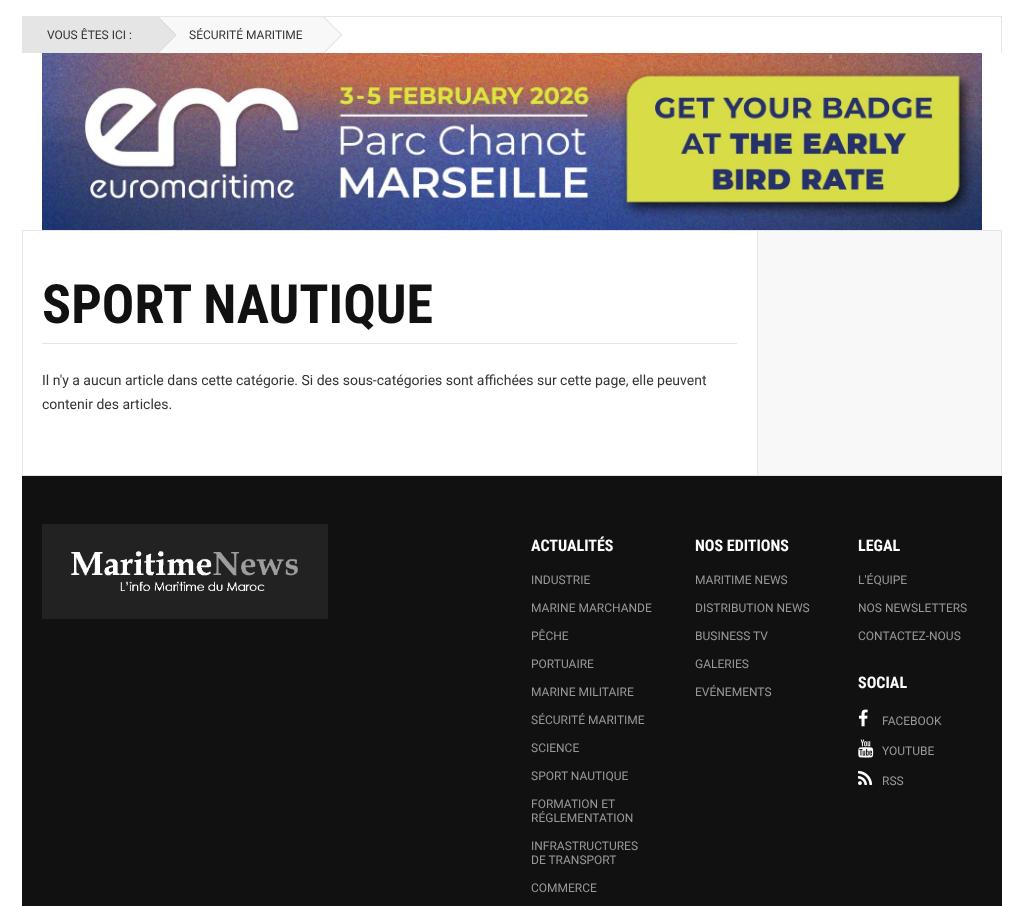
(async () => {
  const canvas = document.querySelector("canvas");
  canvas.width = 1023;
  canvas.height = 906;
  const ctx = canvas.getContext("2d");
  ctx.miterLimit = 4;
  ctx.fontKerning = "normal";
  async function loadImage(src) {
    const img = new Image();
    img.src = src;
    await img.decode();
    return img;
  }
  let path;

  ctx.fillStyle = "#ffffff";
  ctx.fillRect(0, 0, 1023, 906);
  for (const [x, y, w, h, color] of [
    [22, 16, 980, 1, "#e5e5e5"],
    [1001, 16, 1, 37, "#e5e5e5"],
    [22, 16, 1, 37, "#e5e5e5"],
    [23, 17, 135, 36, "#e5e5e5"],
    [158, 17, 165, 36, "#f8f8f8"],
  ]) {
    ctx.fillStyle = color;
    ctx.fillRect(x, y, w, h);
  }
  ctx.fillStyle = "#cccccc";
  path = new Path2D("M158.5 17L158 17.5L175.5 35L158 52.5L158.5 53L176.5 35Z");
  ctx.fill(path);
  ctx.fillStyle = "#e5e5e5";
  path = new Path2D("M157.5 17L175.5 35L157.5 53L139.5 35Z");
  ctx.fill(path);
  ctx.fillRect(323, 17, 1, 36);
  ctx.fillStyle = "#cccccc";
  path = new Path2D("M324 17L323.5 17.5L341 35L323.5 52.5L324 53L342 35Z");
  ctx.fill(path);
  ctx.fillStyle = "#f8f8f8";
  path = new Path2D("M323 17L341 35L323 53L305 35Z");
  ctx.fill(path);
  ctx.drawImage(await loadImage("img/1.png"), 42, 53, 940, 177);
  ctx.strokeStyle = "#e5e5e5";
  ctx.strokeRect(22.5, 230.5, 979, 245);
  ctx.fillStyle = "#e5e5e5";
  ctx.fillRect(42, 343, 695, 1);
  ctx.fillStyle = "#f8f8f8";
  ctx.beginPath();
  ctx.rect(757.5, 230.5, 244, 245);
  ctx.fill();
  ctx.stroke();
  ctx.fillStyle = "#111111";
  ctx.fillRect(22, 476, 980, 430);
  ctx.fillStyle = "#222222";
  ctx.fillRect(42, 524, 286, 95);
  ctx.drawImage(await loadImage("img/2.png"), 71, 551, 227, 40);
  ctx.drawImage(await loadImage("img/3.png"), 858, 709, 10, 18);
  ctx.drawImage(await loadImage("img/4.png"), 858, 739, 16, 19);
  ctx.drawImage(await loadImage("img/5.png"), 858, 770, 15, 15);
  ctx.font = "12px Roboto";
  ctx.fillStyle = "#333333";
  ctx.fillText("VOUS ÊTES ICI :", 47, 39);
  ctx.fillText("SÉCURITÉ MARITIME", 189, 39);
  ctx.font = "bold 54px Roboto Condensed";
  ctx.fillStyle = "#111111";
  ctx.fillText("SPORT NAUTIQUE", 42, 323);
  ctx.font = "14px Roboto";
  ctx.fillStyle = "#333333";
  ctx.fillText("Il n'y a aucun article dans cette catégorie. Si des sous-catégories sont affichées sur cette page, elle peuvent", 42, 385);
  ctx.fillText("contenir des articles.", 42, 409);
  ctx.font = "bold 16px Roboto Condensed";
  ctx.fillStyle = "#ffffff";
  ctx.fillText("ACTUALITÉS", 531, 551);
  ctx.font = "12px Roboto";
  ctx.fillStyle = "#999999";
  for (const [text, x, y] of [
    ["INDUSTRIE", 531, 584],
    ["MARINE MARCHANDE", 531, 612],
    ["PÊCHE", 531, 640],
    ["PORTUAIRE", 531, 668],
    ["MARINE MILITAIRE", 531, 696],
    ["SÉCURITÉ MARITIME", 531, 724],
    ["SCIENCE", 531, 752],
    ["SPORT NAUTIQUE", 531, 780],
    ["FORMATION ET", 531, 808],
    ["RÉGLEMENTATION", 531, 822],
    ["INFRASTRUCTURES", 531, 850],
    ["DE TRANSPORT", 531, 864],
    ["COMMERCE", 531, 892],
  ]) {
    ctx.fillText(text, x, y);
  }
  ctx.font = "bold 16px Roboto Condensed";
  ctx.fillStyle = "#ffffff";
  ctx.fillText("NOS EDITIONS", 695, 551);
  ctx.font = "12px Roboto";
  ctx.fillStyle = "#999999";
  for (const [text, x, y] of [
    ["MARITIME NEWS", 695, 584],
    ["DISTRIBUTION NEWS", 695, 612],
    ["BUSINESS TV", 695, 640],
    ["GALERIES", 695, 668],
    ["EVÉNEMENTS", 695, 696],
  ]) {
    ctx.fillText(text, x, y);
  }
  ctx.font = "bold 16px Roboto Condensed";
  ctx.fillStyle = "#ffffff";
  ctx.fillText("LEGAL", 858, 551);
  ctx.font = "12px Roboto";
  ctx.fillStyle = "#999999";
  for (const [text, x, y] of [
    ["L'ÉQUIPE", 858, 584],
    ["NOS NEWSLETTERS", 858, 612],
    ["CONTACTEZ-NOUS", 858, 640],
  ]) {
    ctx.fillText(text, x, y);
  }
  ctx.font = "bold 16px Roboto Condensed";
  ctx.fillStyle = "#ffffff";
  ctx.fillText("SOCIAL", 858, 688);
  ctx.font = "12px Roboto";
  ctx.fillStyle = "#999999";
  for (const [text, x, y] of [
    ["FACEBOOK", 882, 725],
    ["YOUTUBE", 882, 755],
    ["RSS", 882, 785],
  ]) {
    ctx.fillText(text, x, y);
  }
})();
